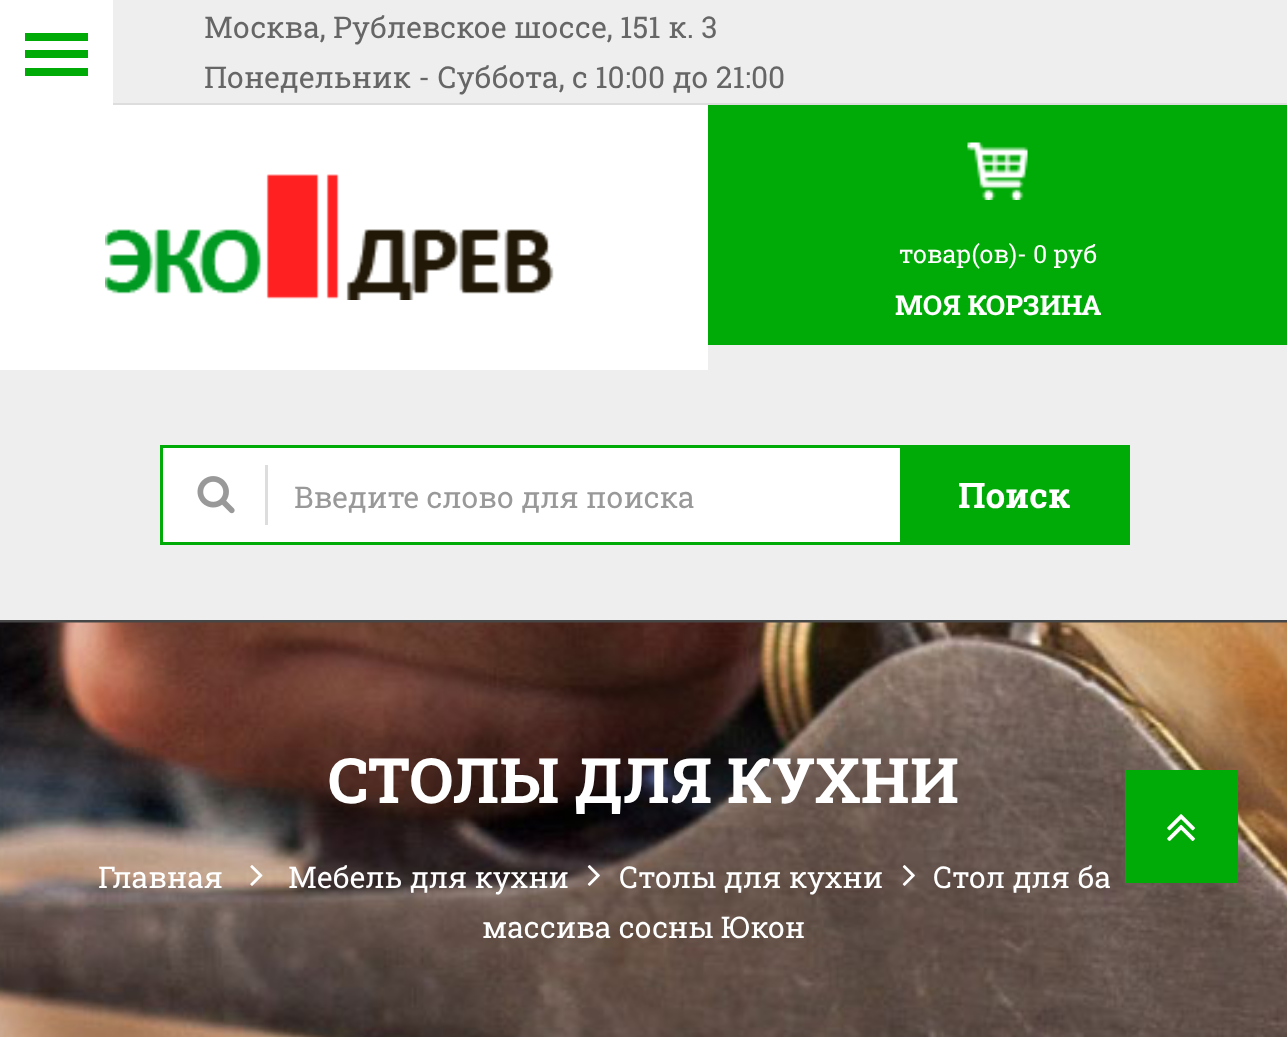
(async () => {
  const canvas = document.querySelector("canvas");
  canvas.width = 1287;
  canvas.height = 1037;
  const ctx = canvas.getContext("2d");
  ctx.miterLimit = 4;
  ctx.fontKerning = "normal";
  async function loadImage(src) {
    const img = new Image();
    img.src = src;
    await img.decode();
    return img;
  }

  ctx.fillStyle = "#eeeeee";
  ctx.fillRect(0, 0, 1287, 1037);
  for (const [x, y, w, h, color] of [
    [0, 620, 1287, 3, "#474747"],
    [0, 0, 113, 105, "#ffffff"],
    [25, 33, 63, 8, "#00ab07"],
    [25, 50, 63, 8, "#00ab07"],
    [25, 68, 63, 8, "#00ab07"],
    [113, 103, 1174, 2, "#dddddd"],
    [0, 105, 708, 265, "#ffffff"],
  ]) {
    ctx.fillStyle = color;
    ctx.fillRect(x, y, w, h);
  }
  ctx.drawImage(await loadImage("img/1.png"), 105, 174, 449, 126);
  ctx.fillStyle = "#00ab07";
  ctx.fillRect(708, 105, 579, 240);
  ctx.drawImage(await loadImage("img/2.png"), 967, 142, 61, 58);
  ctx.fillStyle = "#ffffff";
  ctx.fillRect(163, 448, 737, 94);
  ctx.strokeStyle = "#00ab07";
  ctx.lineWidth = 3;
  ctx.strokeRect(161.5, 446.5, 967, 97);
  ctx.fillStyle = "#dddddd";
  ctx.fillRect(265, 465, 3, 60);
  ctx.drawImage(await loadImage("img/3.png"), 197, 476, 38, 38);
  ctx.fillStyle = "#00ab07";
  ctx.fillRect(900, 448, 227, 94);
  ctx.drawImage(await loadImage("img/4.png"), 0, 622, 1287, 415);
  ctx.drawImage(await loadImage("img/5.png"), 250, 865, 13, 21);
  ctx.drawImage(await loadImage("img/6.png"), 587, 865, 13, 21);
  ctx.drawImage(await loadImage("img/7.png"), 902, 865, 13, 21);
  ctx.fillRect(1125, 770, 113, 113);
  ctx.drawImage(await loadImage("img/8.png"), 1167, 814, 28, 27);
  ctx.font = "30px Roboto Slab";
  ctx.fillStyle = "#666666";
  ctx.fillText("Москва, Рублевское шоссе, 151 к. 3", 204, 38);
  ctx.fillText("Понедельник - Суббота, с 10:00 до 21:00", 204, 88);
  ctx.font = "25px Roboto Slab";
  ctx.fillStyle = "#ffffff";
  ctx.fillText("товар(ов)- 0 руб", 899, 263);
  ctx.font = "bold 27.5px Roboto Slab";
  ctx.fillText("МОЯ КОРЗИНА", 895, 315);
  ctx.font = "30px Roboto Slab";
  ctx.fillStyle = "#999999";
  ctx.fillText("Введите слово для поиска", 294, 508);
  ctx.font = "bold 35px Roboto Slab";
  ctx.fillStyle = "#ffffff";
  ctx.fillText("Поиск", 958, 508);
  ctx.font = "bold 62.5px Roboto Slab";
  ctx.fillText("СТОЛЫ ДЛЯ КУХНИ", 328, 803);
  ctx.font = "30px Roboto Slab";
  for (const [text, x, y] of [
    ["Главная", 98, 888],
    ["Мебель для кухни", 288, 888],
    ["Столы для кухни", 619, 888],
    ["Стол для ба", 933, 888],
    ["массива сосны Юкон", 482, 938],
  ]) {
    ctx.fillText(text, x, y);
  }
})();
